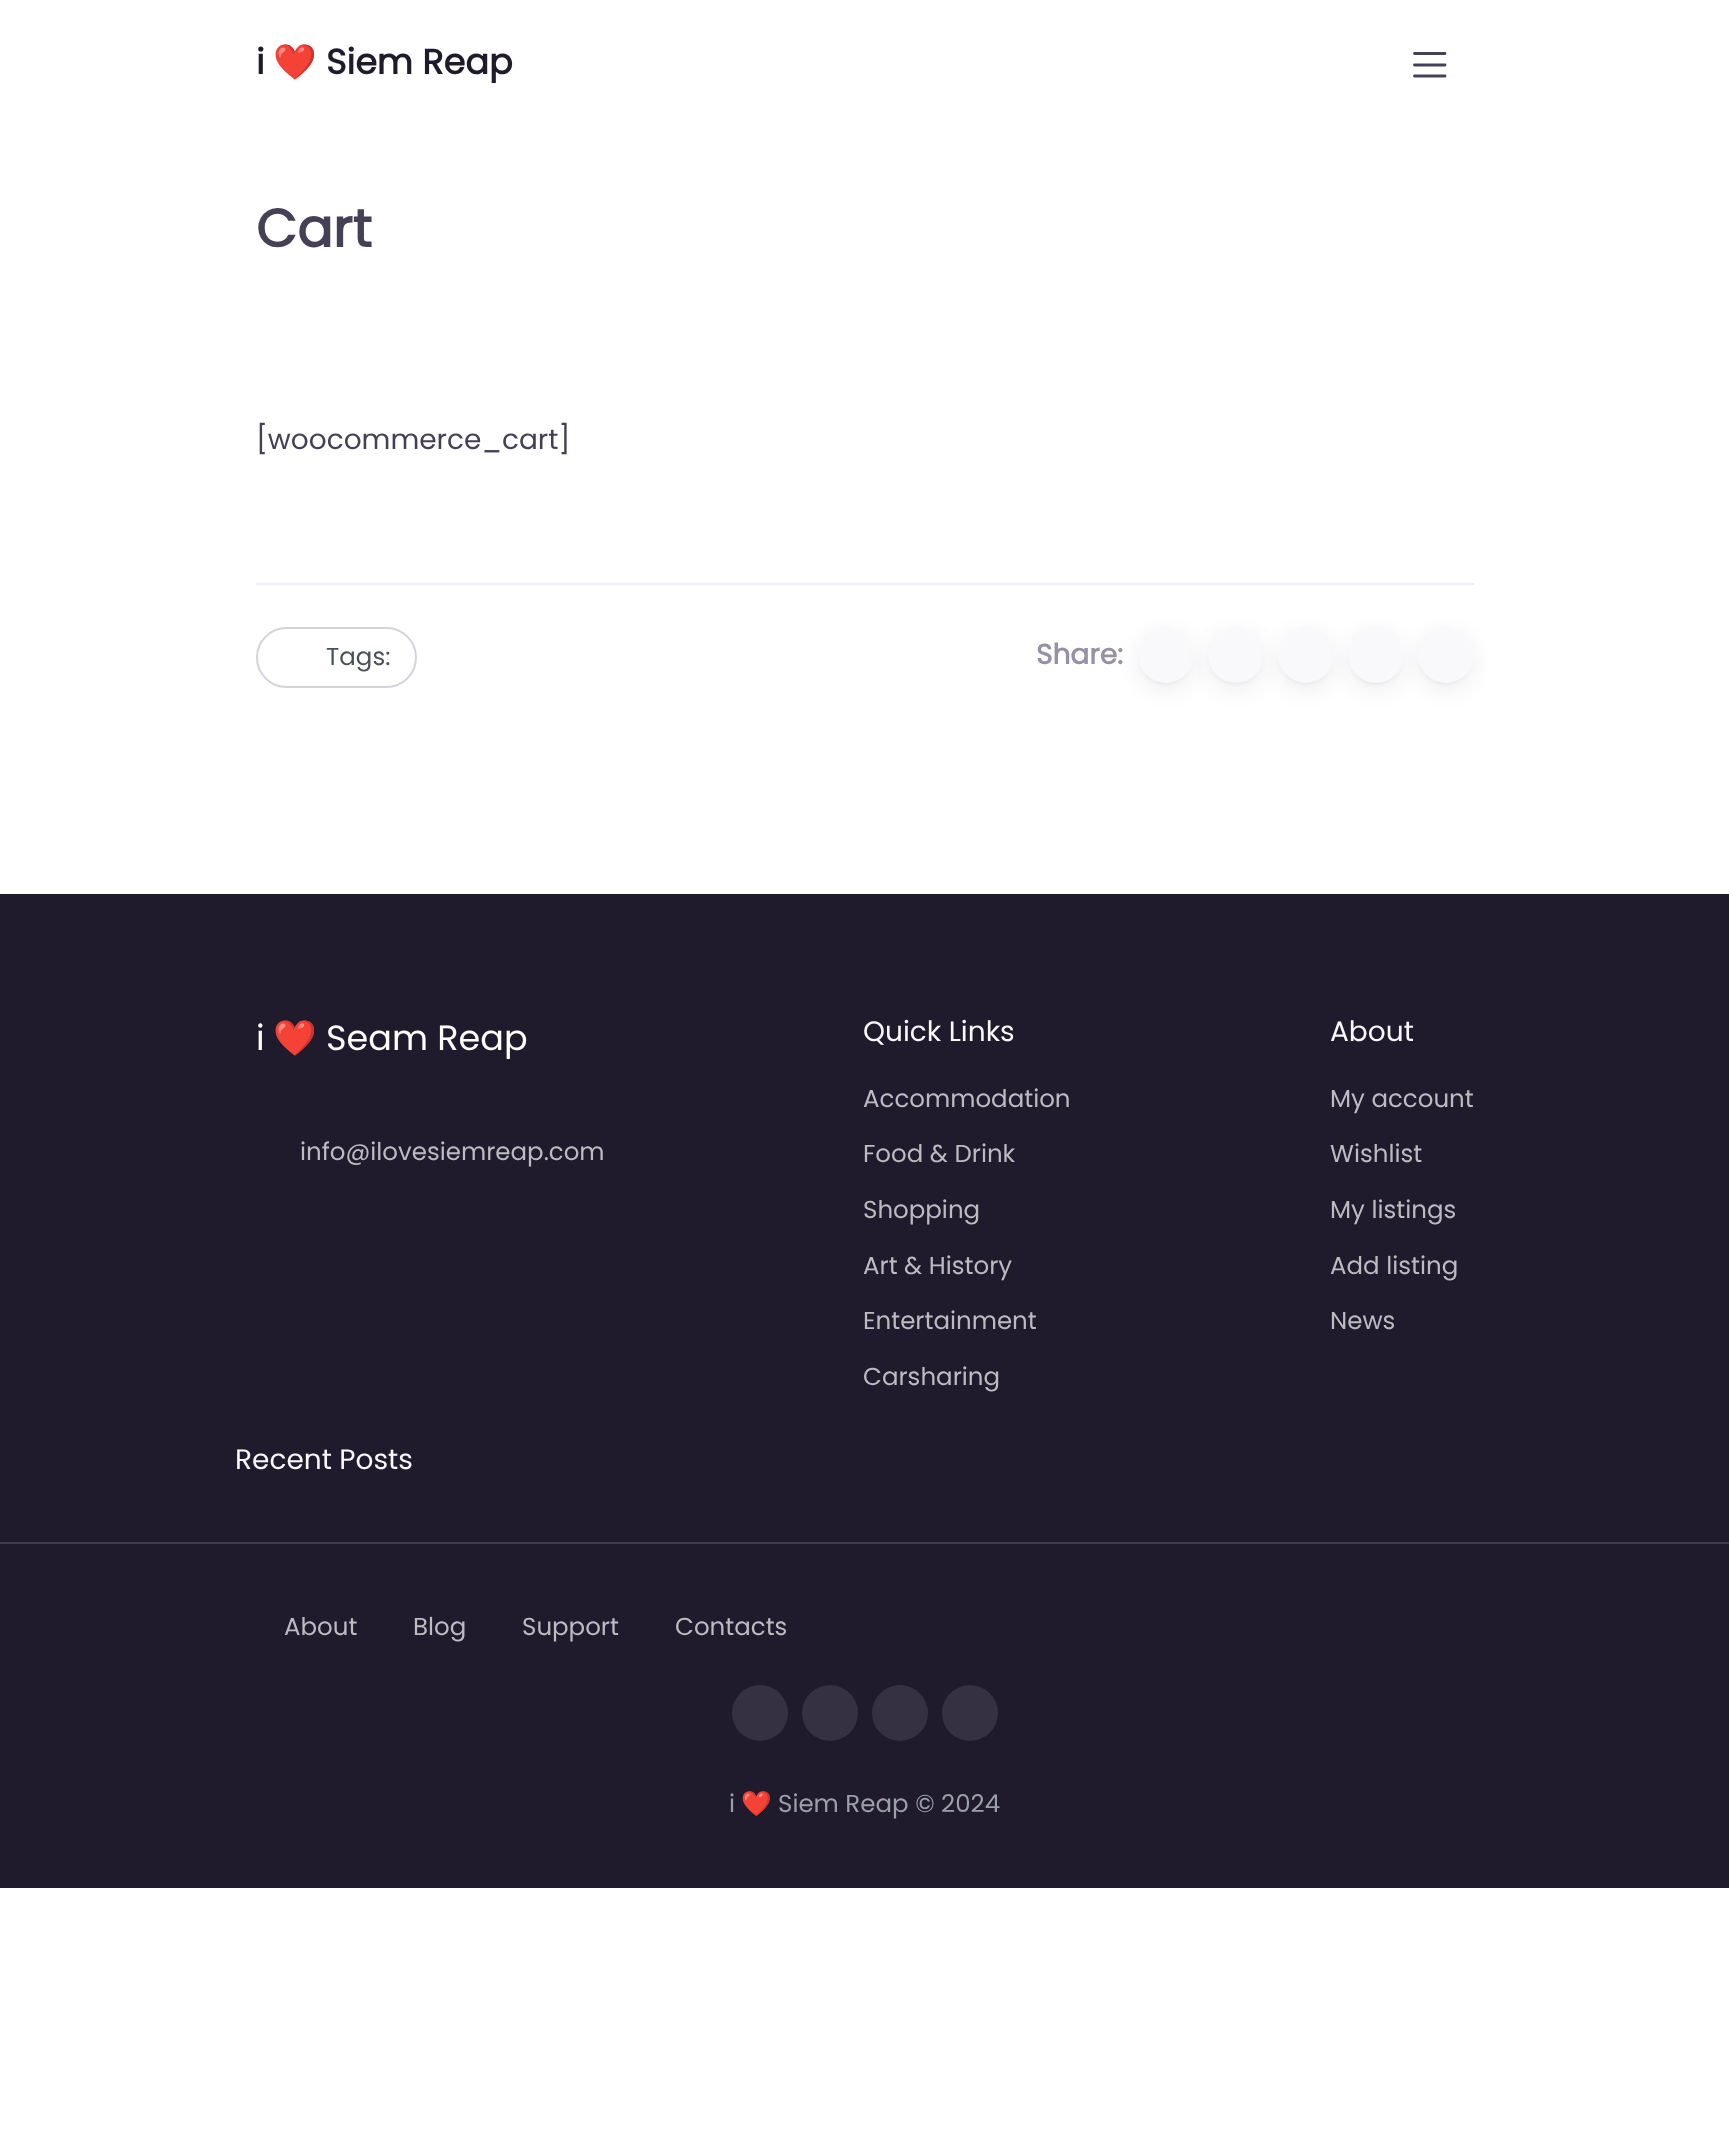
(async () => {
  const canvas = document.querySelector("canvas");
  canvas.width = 1729;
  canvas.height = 2138;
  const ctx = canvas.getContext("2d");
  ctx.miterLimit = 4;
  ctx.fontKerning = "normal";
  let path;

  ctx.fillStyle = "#ffffff";
  ctx.fillRect(0, 0, 1729, 2138);
  path = new Path2D("M1414.5 53.5H1445M1414.5 65H1445M1414.5 76H1445");
  ctx.strokeStyle = "#454056";
  ctx.lineWidth = 2.8;
  ctx.lineCap = "round";
  ctx.stroke(path);
  ctx.fillStyle = "#efecf3";
  ctx.fillRect(256, 583, 1218, 2);
  ctx.beginPath();
  ctx.roundRect(257, 628, 159, 59, 29.5);
  ctx.strokeStyle = "#d5d2dc";
  ctx.lineWidth = 2;
  ctx.stroke();
  ctx.fillStyle = "rgba(31, 27, 45, 0.08)";
  ctx.filter = "blur(10.5px)";
  ctx.beginPath();
  ctx.roundRect(1138, 634, 56, 56, 28);
  ctx.fill();
  ctx.filter = "none";
  ctx.filter = "blur(2px)";
  ctx.beginPath();
  ctx.roundRect(1141, 634, 49, 49, 24.5);
  ctx.fill();
  ctx.filter = "none";
  ctx.fillStyle = "#f9f8fa";
  ctx.beginPath();
  ctx.arc(1166, 655, 28, 0, Math.PI * 2);
  ctx.fill();
  ctx.fillStyle = "rgba(31, 27, 45, 0.08)";
  ctx.filter = "blur(10.5px)";
  ctx.beginPath();
  ctx.roundRect(1208, 634, 56, 56, 28);
  ctx.fill();
  ctx.filter = "none";
  ctx.filter = "blur(2px)";
  ctx.beginPath();
  ctx.roundRect(1211, 634, 49, 49, 24.5);
  ctx.fill();
  ctx.filter = "none";
  ctx.fillStyle = "#f9f8fa";
  ctx.beginPath();
  ctx.arc(1236, 655, 28, 0, Math.PI * 2);
  ctx.fill();
  ctx.fillStyle = "rgba(31, 27, 45, 0.08)";
  ctx.filter = "blur(10.5px)";
  ctx.beginPath();
  ctx.roundRect(1278, 634, 56, 56, 28);
  ctx.fill();
  ctx.filter = "none";
  ctx.filter = "blur(2px)";
  ctx.beginPath();
  ctx.roundRect(1281, 634, 49, 49, 24.5);
  ctx.fill();
  ctx.filter = "none";
  ctx.fillStyle = "#f9f8fa";
  ctx.beginPath();
  ctx.arc(1306, 655, 28, 0, Math.PI * 2);
  ctx.fill();
  ctx.fillStyle = "rgba(31, 27, 45, 0.08)";
  ctx.filter = "blur(10.5px)";
  ctx.beginPath();
  ctx.roundRect(1348, 634, 56, 56, 28);
  ctx.fill();
  ctx.filter = "none";
  ctx.filter = "blur(2px)";
  ctx.beginPath();
  ctx.roundRect(1351, 634, 49, 49, 24.5);
  ctx.fill();
  ctx.filter = "none";
  ctx.fillStyle = "#f9f8fa";
  ctx.beginPath();
  ctx.arc(1376, 655, 28, 0, Math.PI * 2);
  ctx.fill();
  ctx.fillStyle = "rgba(31, 27, 45, 0.08)";
  ctx.filter = "blur(10.5px)";
  ctx.beginPath();
  ctx.roundRect(1418, 634, 56, 56, 28);
  ctx.fill();
  ctx.filter = "none";
  ctx.filter = "blur(2px)";
  ctx.beginPath();
  ctx.roundRect(1421, 634, 49, 49, 24.5);
  ctx.fill();
  ctx.filter = "none";
  ctx.fillStyle = "#f9f8fa";
  ctx.beginPath();
  ctx.arc(1446, 655, 28, 0, Math.PI * 2);
  ctx.fill();
  for (const [x, y, w, h, color] of [
    [0, 894, 1729, 648, "#1f1b2d"],
    [0, 1544, 1729, 344, "#1f1b2d"],
    [0, 1542, 1729, 2, "#413d4d"],
  ]) {
    ctx.fillStyle = color;
    ctx.fillRect(x, y, w, h);
  }
  ctx.fillStyle = "#353142";
  ctx.beginPath();
  ctx.arc(760, 1713, 28, 0, Math.PI * 2);
  ctx.fill();
  ctx.beginPath();
  ctx.arc(830, 1713, 28, 0, Math.PI * 2);
  ctx.fill();
  ctx.beginPath();
  ctx.arc(900, 1713, 28, 0, Math.PI * 2);
  ctx.fill();
  ctx.beginPath();
  ctx.arc(970, 1713, 28, 0, Math.PI * 2);
  ctx.fill();
  ctx.font = "bold 35px Poppins";
  ctx.fillStyle = "#1f1b2d";
  ctx.fillText("i", 256, 74);
  ctx.font = "bold 35px Noto Color Emoji";
  ctx.fillStyle = "#3993d5";
  ctx.fillText("❤️", 273, 74);
  ctx.font = "bold 35px Poppins";
  ctx.fillStyle = "#1f1b2d";
  ctx.fillText("Siem Reap", 326, 74);
  ctx.font = "bold 53px Poppins";
  ctx.fillStyle = "#454056";
  ctx.fillText("Cart", 256, 247);
  ctx.font = "28px Poppins";
  ctx.fillText("[woocommerce_cart]", 256, 449);
  ctx.font = "24.5px Poppins";
  ctx.fillStyle = "#495057";
  ctx.fillText("Tags:", 326, 665);
  ctx.font = "bold 28px Poppins";
  ctx.fillStyle = "#9691a4";
  ctx.fillText("Share:", 1036, 664);
  ctx.font = "35px Poppins";
  ctx.fillStyle = "#ffffff";
  ctx.fillText("i", 256, 1050);
  ctx.font = "bold 35px Noto Color Emoji";
  ctx.fillStyle = "#1e73be";
  ctx.fillText("❤️", 273, 1050);
  ctx.font = "35px Poppins";
  ctx.fillStyle = "#ffffff";
  ctx.fillText("Seam Reap", 326, 1050);
  ctx.font = "24.5px Poppins";
  ctx.fillStyle = "#bcbbc0";
  ctx.fillText("info@ilovesiemreap.com", 300, 1160);
  ctx.font = "28px Poppins";
  ctx.fillStyle = "#f9f8fa";
  ctx.fillText("Quick Links", 863, 1041);
  ctx.font = "24.5px Poppins";
  ctx.fillStyle = "#bcbbc0";
  for (const [text, x, y] of [
    ["Accommodation", 863, 1107],
    ["Food & Drink", 863, 1162],
    ["Shopping", 863, 1218],
    ["Art & History", 863, 1274],
    ["Entertainment", 863, 1329],
    ["Carsharing", 863, 1385],
  ]) {
    ctx.fillText(text, x, y);
  }
  ctx.font = "28px Poppins";
  ctx.fillStyle = "#f9f8fa";
  ctx.fillText("About", 1330, 1041);
  ctx.font = "24.5px Poppins";
  ctx.fillStyle = "#bcbbc0";
  for (const [text, x, y] of [
    ["My account", 1330, 1107],
    ["Wishlist", 1330, 1162],
    ["My listings", 1330, 1218],
    ["Add listing", 1330, 1274],
    ["News", 1330, 1329],
  ]) {
    ctx.fillText(text, x, y);
  }
  ctx.font = "28px Poppins";
  ctx.fillStyle = "#f9f8fa";
  ctx.fillText("Recent Posts", 235, 1469);
  ctx.font = "24.5px Poppins";
  ctx.fillStyle = "#bcbbc0";
  for (const [text, x, y] of [
    ["About", 284, 1635],
    ["Blog", 413, 1635],
    ["Support", 522, 1635],
    ["Contacts", 675, 1635],
  ]) {
    ctx.fillText(text, x, y);
  }
  ctx.fillStyle = "#9c9fa9";
  ctx.fillText("i", 729, 1812);
  ctx.font = "24.5px Noto Color Emoji";
  ctx.fillText("❤️", 741, 1812);
  ctx.font = "24.5px Poppins";
  ctx.fillText("Siem Reap © 2024", 778, 1812);
})();
